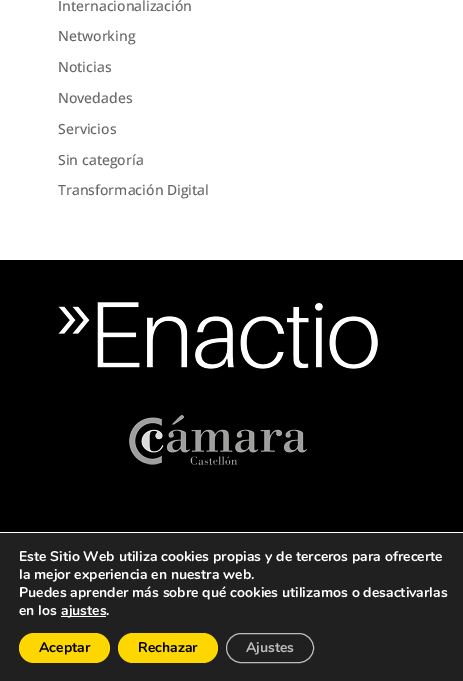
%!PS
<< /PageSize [463 681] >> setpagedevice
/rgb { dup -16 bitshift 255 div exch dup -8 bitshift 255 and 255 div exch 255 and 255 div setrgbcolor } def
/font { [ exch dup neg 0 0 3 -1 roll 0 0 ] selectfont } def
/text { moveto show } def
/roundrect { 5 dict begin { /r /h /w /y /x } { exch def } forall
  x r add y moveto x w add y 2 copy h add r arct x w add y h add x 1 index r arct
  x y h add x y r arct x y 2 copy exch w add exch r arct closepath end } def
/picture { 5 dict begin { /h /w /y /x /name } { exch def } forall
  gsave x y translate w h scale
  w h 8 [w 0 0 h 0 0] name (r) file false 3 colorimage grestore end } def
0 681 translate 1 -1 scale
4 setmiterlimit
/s1 { /OpenSans-Medium 14 font 16#666666 rgb } def
/s2 { /Nunito-Bold 14 font 16#FFFFFF rgb } def
/s3 { /Nunito-Bold 14 font 16#000000 rgb } def
/s4 { /Nunito-Bold 14 font 16#BCBCBC rgb } def
16#FFFFFF rgb
0 0 463 681 rectfill
s1
(Internacionalización) 58 11 text
(Networking) 58 41 text
(Noticias) 58 72 text
(Novedades) 58 103 text
(Servicios) 58 134 text
(Sin categoría) 58 165 text
(Transformación Digital) 58 195 text
16#000000 rgb
0 260 463 272 rectfill
(pic1.raw) 58 302 320 163 picture
16#202020 rgb
0 533 463 148 rectfill
s2
(Este Sitio Web utiliza cookies propias y de terceros para ofrecerte) 19 561 text
(la mejor experiencia en nuestra web.) 19 579 text
(Puedes aprender más sobre qué cookies utilizamos o desactivarlas) 19 597 text
(en los) 19 615 text
61 616 45 1 rectfill
(ajustes.) 61 615 text
16#FFD700 rgb
19 633 91 30 15 roundrect fill
s3
(Aceptar) 39 652 text
16#FFD700 rgb
118 633 100 30 15 roundrect fill
s3
(Rechazar) 138 652 text
16#BCBCBC rgb
226.5 633.5 87 29 14.5 roundrect stroke
(Ajustes) 246 652 text
showpage
